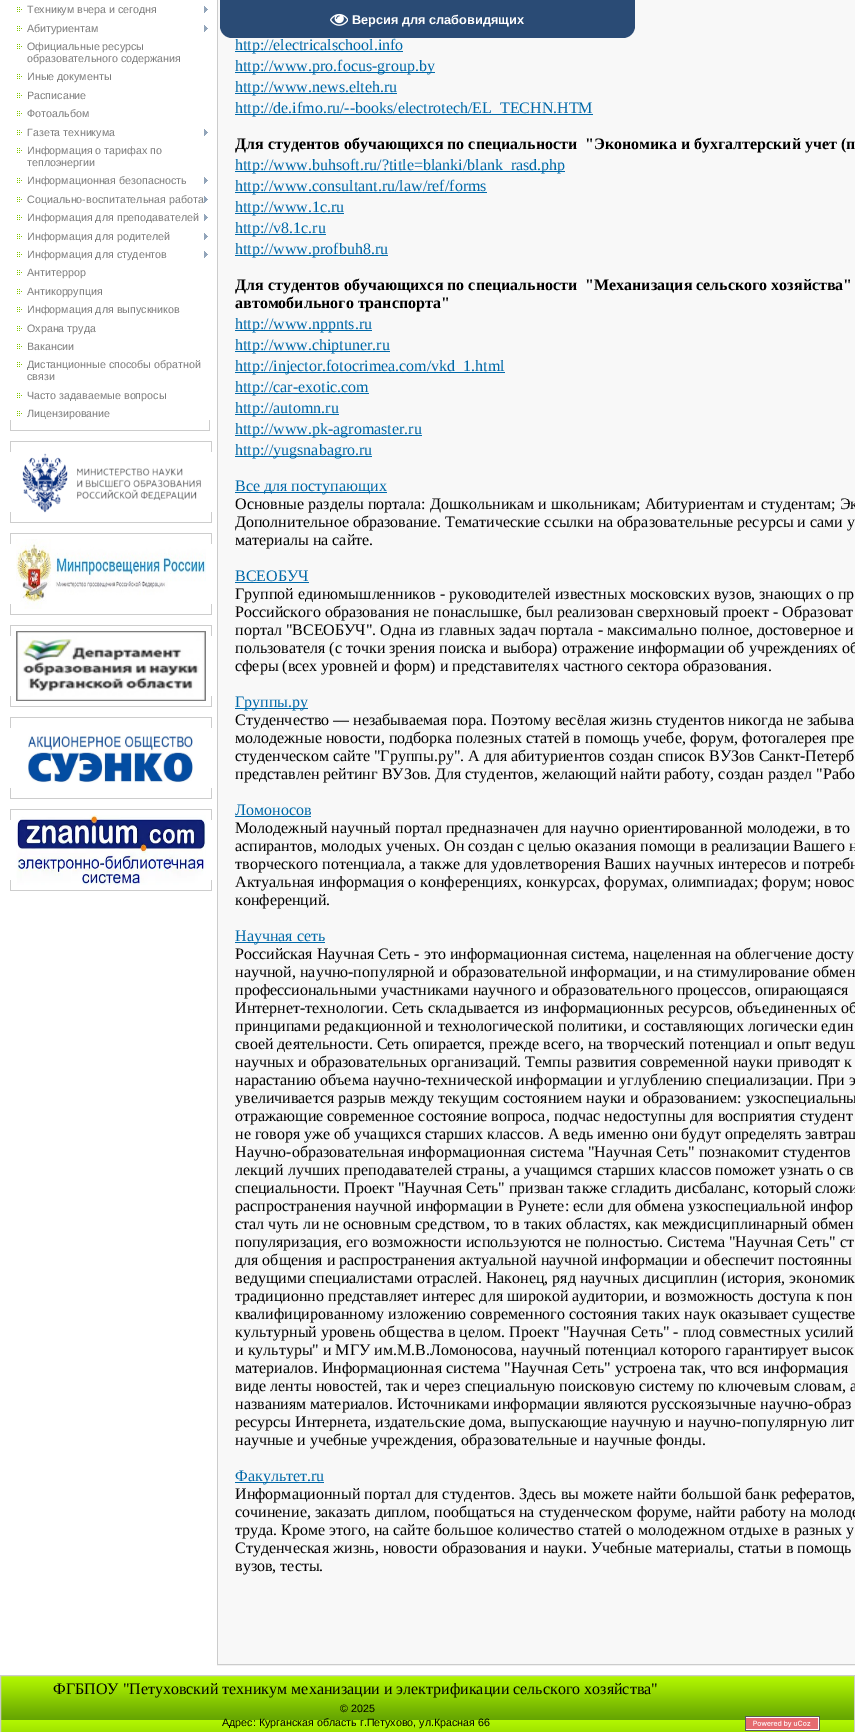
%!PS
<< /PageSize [855 1732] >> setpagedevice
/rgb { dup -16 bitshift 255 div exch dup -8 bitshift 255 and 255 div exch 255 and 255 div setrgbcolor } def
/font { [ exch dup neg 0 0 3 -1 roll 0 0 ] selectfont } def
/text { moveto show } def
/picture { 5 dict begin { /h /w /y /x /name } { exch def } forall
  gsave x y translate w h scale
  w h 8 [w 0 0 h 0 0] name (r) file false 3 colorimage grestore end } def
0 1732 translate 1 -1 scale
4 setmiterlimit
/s1 { /LiberationSans-Regular 10.7 font 16#7D7D7D rgb } def
/s2 { /LiberationSerif-Regular 16 font 16#0069A9 rgb } def
/s3 { /LiberationSerif-Bold 16 font 16#000000 rgb } def
/s4 { /LiberationSerif-Regular 16 font 16#000000 rgb } def
/s5 { /LiberationSans-Bold 12.75 font 16#FFFFFF rgb } def
/s6 { /LiberationSans-Regular 10.7 font 16#000000 rgb } def
16#FFFFFF rgb
0 0 855 1732 rectfill
16#CDCDCD rgb
11 430 198 1 rectfill
(pic1.raw) 17 7 5 5 picture
s1
(Техникум вчера и сегодня) 27 13 text
(pic2.raw) 204 6 4 7 picture
(pic1.raw) 17 26 5 5 picture
(Абитуриентам) 27 32 text
(pic2.raw) 204 25 4 7 picture
(pic1.raw) 17 44 5 5 picture
(Официальные ресурсы) 27 50 text
(образовательного содержания) 27 62 text
(pic1.raw) 17 74 5 5 picture
(Иные документы) 27 80 text
(pic1.raw) 17 93 5 5 picture
(Расписание) 27 99 text
(pic1.raw) 17 111 5 5 picture
(Фотоальбом) 27 117 text
(pic1.raw) 17 130 5 5 picture
(Газета техникума) 27 136 text
(pic2.raw) 204 129 4 7 picture
(pic1.raw) 17 148 5 5 picture
(Информация о тарифах по) 27 154 text
(теплоэнергии) 27 166 text
(pic1.raw) 17 178 5 5 picture
(Информационная безопасность) 27 184 text
(pic2.raw) 204 177 4 7 picture
(pic1.raw) 17 197 5 5 picture
(Социально-воспитательная работа) 27 203 text
(pic2.raw) 204 196 4 7 picture
(pic1.raw) 17 215 5 5 picture
(Информация для преподавателей) 27 221 text
(pic2.raw) 204 214 4 7 picture
(pic1.raw) 17 234 5 5 picture
(Информация для родителей) 27 240 text
(pic2.raw) 204 233 4 7 picture
(pic1.raw) 17 252 5 5 picture
(Информация для студентов) 27 258 text
(pic2.raw) 204 251 4 7 picture
(pic1.raw) 17 270 5 5 picture
(Антитеррор) 27 276 text
(pic1.raw) 17 289 5 5 picture
(Антикоррупция) 27 295 text
(pic1.raw) 17 307 5 5 picture
(Информация для выпускников) 27 313 text
(pic1.raw) 17 326 5 5 picture
(Охрана труда) 27 332 text
(pic1.raw) 17 344 5 5 picture
(Вакансии) 27 350 text
(pic1.raw) 17 362 5 5 picture
(Дистанционные способы обратной) 27 368 text
(связи) 27 380 text
(pic1.raw) 17 393 5 5 picture
(Часто задаваемые вопросы) 27 399 text
(pic1.raw) 17 411 5 5 picture
(Лицензирование) 27 417 text
16#CDCDCD rgb
10 420 1 11 rectfill
209 420 1 11 rectfill
10 512 1 11 rectfill
10 441 1 11 rectfill
11 441 200 1 rectfill
11 522 200 1 rectfill
(pic3.raw) 22 453 179 60 picture
211 512 1 11 rectfill
211 441 1 11 rectfill
10 604 1 11 rectfill
10 533 1 11 rectfill
11 533 200 1 rectfill
11 614 200 1 rectfill
(pic4.raw) 16 539 190 70 picture
211 604 1 11 rectfill
211 533 1 11 rectfill
10 696 1 11 rectfill
10 625 1 11 rectfill
11 625 200 1 rectfill
11 706 200 1 rectfill
(pic5.raw) 16 631 190 70 picture
211 696 1 11 rectfill
211 625 1 11 rectfill
10 788 1 11 rectfill
10 717 1 11 rectfill
11 717 200 1 rectfill
11 798 200 1 rectfill
(pic6.raw) 28 736 165 47 picture
211 788 1 11 rectfill
211 717 1 11 rectfill
10 880 1 11 rectfill
10 809 1 11 rectfill
11 809 200 1 rectfill
11 890 200 1 rectfill
(pic7.raw) 16 815 190 70 picture
211 880 1 11 rectfill
211 809 1 11 rectfill
16#CCCCCC rgb
217.5 -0.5 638 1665 rectstroke
16#F8F8F8 rgb
218 0 637 1664 rectfill
16#0069A9 rgb
235 51 168 1 rectfill
s2
(http://electricalschool.info) 235 50 text
235 72 200 1 rectfill
(http://www.pro.focus-group.by) 235 71 text
235 93 162 1 rectfill
(http://www.news.elteh.ru) 235 92 text
235 114 358 1 rectfill
(http://de.ifmo.ru/--books/electrotech/EL_TECHN.HTM) 235 113 text
s3
(Для студентов обучающихся по специальности  "Экономика и бухгалтерский учет \(п) 235 149 text
16#0069A9 rgb
235 171 330 1 rectfill
s2
(http://www.buhsoft.ru/?title=blanki/blank_rasd.php) 235 170 text
235 192 252 1 rectfill
(http://www.consultant.ru/law/ref/forms) 235 191 text
235 213 109 1 rectfill
(http://www.1c.ru) 235 212 text
235 234 91 1 rectfill
(http://v8.1c.ru) 235 233 text
235 255 153 1 rectfill
(http://www.profbuh8.ru) 235 254 text
s3
(Для студентов обучающихся по специальности  "Механизация сельского хозяйства") 235 290 text
(автомобильного транспорта") 235 308 text
16#0069A9 rgb
235 330 137 1 rectfill
s2
(http://www.nppnts.ru) 235 329 text
235 351 155 1 rectfill
(http://www.chiptuner.ru) 235 350 text
235 372 270 1 rectfill
(http://injector.fotocrimea.com/vkd_1.html) 235 371 text
235 393 134 1 rectfill
(http://car-exotic.com) 235 392 text
235 414 104 1 rectfill
(http://automn.ru) 235 413 text
235 435 187 1 rectfill
(http://www.pk-agromaster.ru) 235 434 text
235 456 137 1 rectfill
(http://yugsnabagro.ru) 235 455 text
235 492 152 1 rectfill
(Все для поступающих) 235 491 text
s4
(Основные разделы портала: Дошкольникам и школьникам; Абитуриентам и студентам; Эк) 235 509 text
(Дополнительное образование. Тематические ссылки на образовательные ресурсы и сами у) 235 527 text
(материалы на сайте.) 235 545 text
s2
(ВСЕОБУЧ) 235 581 text
235 582 74 1 rectfill
s4
(Группой единомышленников - руководителей известных московских вузов, знающих о пр) 235 599 text
(Российского образования не понаслышке, был реализован сверхновый проект - Образоват) 235 617 text
(портал "ВСЕОБУЧ". Одна из главных задач портала - максимально полное, достоверное и) 235 635 text
(пользователя \(с точки зрения поиска и выбора\) отражение информации об учреждениях об) 235 653 text
(сферы \(всех уровней и форм\) и представителях частного сектора образования.) 235 671 text
16#0069A9 rgb
235 708 73 1 rectfill
(Группы.ру) 235 707 text
s4
(Студенчество — незабываемая пора. Поэтому весёлая жизнь студентов никогда не забыва) 235 725 text
(молодежные новости, подборка полезных статей в помощь учебе, форум, фотогалерея пре) 235 743 text
(студенческом сайте "Группы.ру". А для абитуриентов создан список ВУЗов Санкт-Петерб) 235 761 text
(представлен рейтинг ВУЗов. Для студентов, желающий найти работу, создан раздел "Рабо) 235 779 text
s2
(Ломоносов) 235 815 text
235 816 76 1 rectfill
s4
(Молодежный научный портал предназначен для научно ориентированной молодежи, в то) 235 833 text
(аспирантов, молодых ученых. Он создан с целью оказания помощи в реализации Вашего н) 235 851 text
(творческого потенциала, а также для удовлетворения Ваших научных интересов и потребн) 235 869 text
(Актуальная информация о конференциях, конкурсах, форумах, олимпиадах; форум; новос) 235 887 text
(конференций.) 235 905 text
16#0069A9 rgb
235 942 90 1 rectfill
(Научная сеть) 235 941 text
s4
(Российская Научная Сеть - это информационная система, нацеленная на облегчение досту) 235 959 text
(научной, научно-популярной и образовательной информации, и на стимулирование обмен) 235 977 text
(профессиональными участниками научного и образовательного процессов, опирающаяся) 235 995 text
(Интернет-технологии. Сеть складывается из информационных ресурсов, объединенных об) 235 1013 text
(принципами редакционной и технологической политики, и составляющих логически един) 235 1031 text
(своей деятельности. Сеть опирается, прежде всего, на творческий потенциал и опыт ведущ) 235 1049 text
(научных и образовательных организаций. Темпы развития современной науки приводят к) 235 1067 text
(нарастанию объема научно-технической информации и углублению специализации. При э) 235 1085 text
(увеличивается разрыв между текущим состоянием науки и образованием: узкоспециальны) 235 1103 text
(отражающие современное состояние вопроса, подчас недоступны для восприятия студент) 235 1121 text
(не говоря уже об учащихся старших классов. А ведь именно они будут определять завтраш) 235 1139 text
(Научно-образовательная информационная система "Научная Сеть" познакомит студентов) 235 1157 text
(лекций лучших преподавателей страны, а учащимся старших классов поможет узнать о св) 235 1175 text
(специальности. Проект "Научная Сеть" призван также сгладить дисбаланс, который сложи) 235 1193 text
(распространения научной информации в Рунете: если для обмена узкоспециальной инфор) 235 1211 text
(стал чуть ли не основным средством, то в таких областях, как междисциплинарный обмен) 235 1229 text
(популяризация, его возможности используются не полностью. Система "Научная Сеть" ст) 235 1247 text
(для общения и распространения актуальной научной информации и обеспечит постоянны) 235 1265 text
(ведущими специалистами отраслей. Наконец, ряд научных дисциплин \(история, экономик) 235 1283 text
(традиционно представляет интерес для широкой аудитории, и возможность доступа к пон) 235 1301 text
(квалифицированному изложению современного состояния таких наук оказывает существе) 235 1319 text
(культурный уровень общества в целом. Проект "Научная Сеть" - плод совместных усилий) 235 1337 text
(и культуры" и МГУ им.М.В.Ломоносова, научный потенциал которого гарантирует высок) 235 1355 text
(материалов. Информационная система "Научная Сеть" устроена так, что вся информация) 235 1373 text
(виде ленты новостей, так и через специальную поисковую систему по ключевым словам, а) 235 1391 text
(названиям материалов. Источниками информации являются русскоязычные научно-образ) 235 1409 text
(ресурсы Интернета, издательские дома, выпускающие научную и научно-популярную лит) 235 1427 text
(научные и учебные учреждения, образовательные и научные фонды.) 235 1445 text
16#0069A9 rgb
235 1482 89 1 rectfill
(Факультет.ru) 235 1481 text
s4
(Информационный портал для студентов. Здесь вы можете найти большой банк рефератов,) 235 1499 text
(сочинение, заказать диплом, пообщаться на студенческом форуме, найти работу на молоде) 235 1517 text
(труда. Кроме этого, на сайте большое количество статей о молодежном отдыхе в разных у) 235 1535 text
(Студенческая жизнь, новости образования и науки. Учебные материалы, статьи в помощь) 235 1553 text
(вузов, тесты.) 235 1571 text
16#2A4B75 rgb
220 0 moveto 635 0 lineto 635 26 lineto 635 32.5 629.5 38 623 38 curveto 232 38 lineto 225.5 38 220 32.5 220 26 curveto closepath fill
(pic8.raw) 330 13 18 13 picture
s5
(Версия для слабовидящих) 352 24 text
(pic9.raw) 1 1676 853 56 picture
16#CCCCCC rgb
0.5 1675.5 854 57 rectstroke
s4
(ФГБПОУ "Петуховский техникум механизации и электрификации сельского хозяйства") 53 1694 text
s6
(© 2025) 340 1712 text
(Адрес: Курганская область г.Петухово, ул.Красная 66) 222 1726 text
(pic10.raw) 745 1716 75 15 picture
showpage
